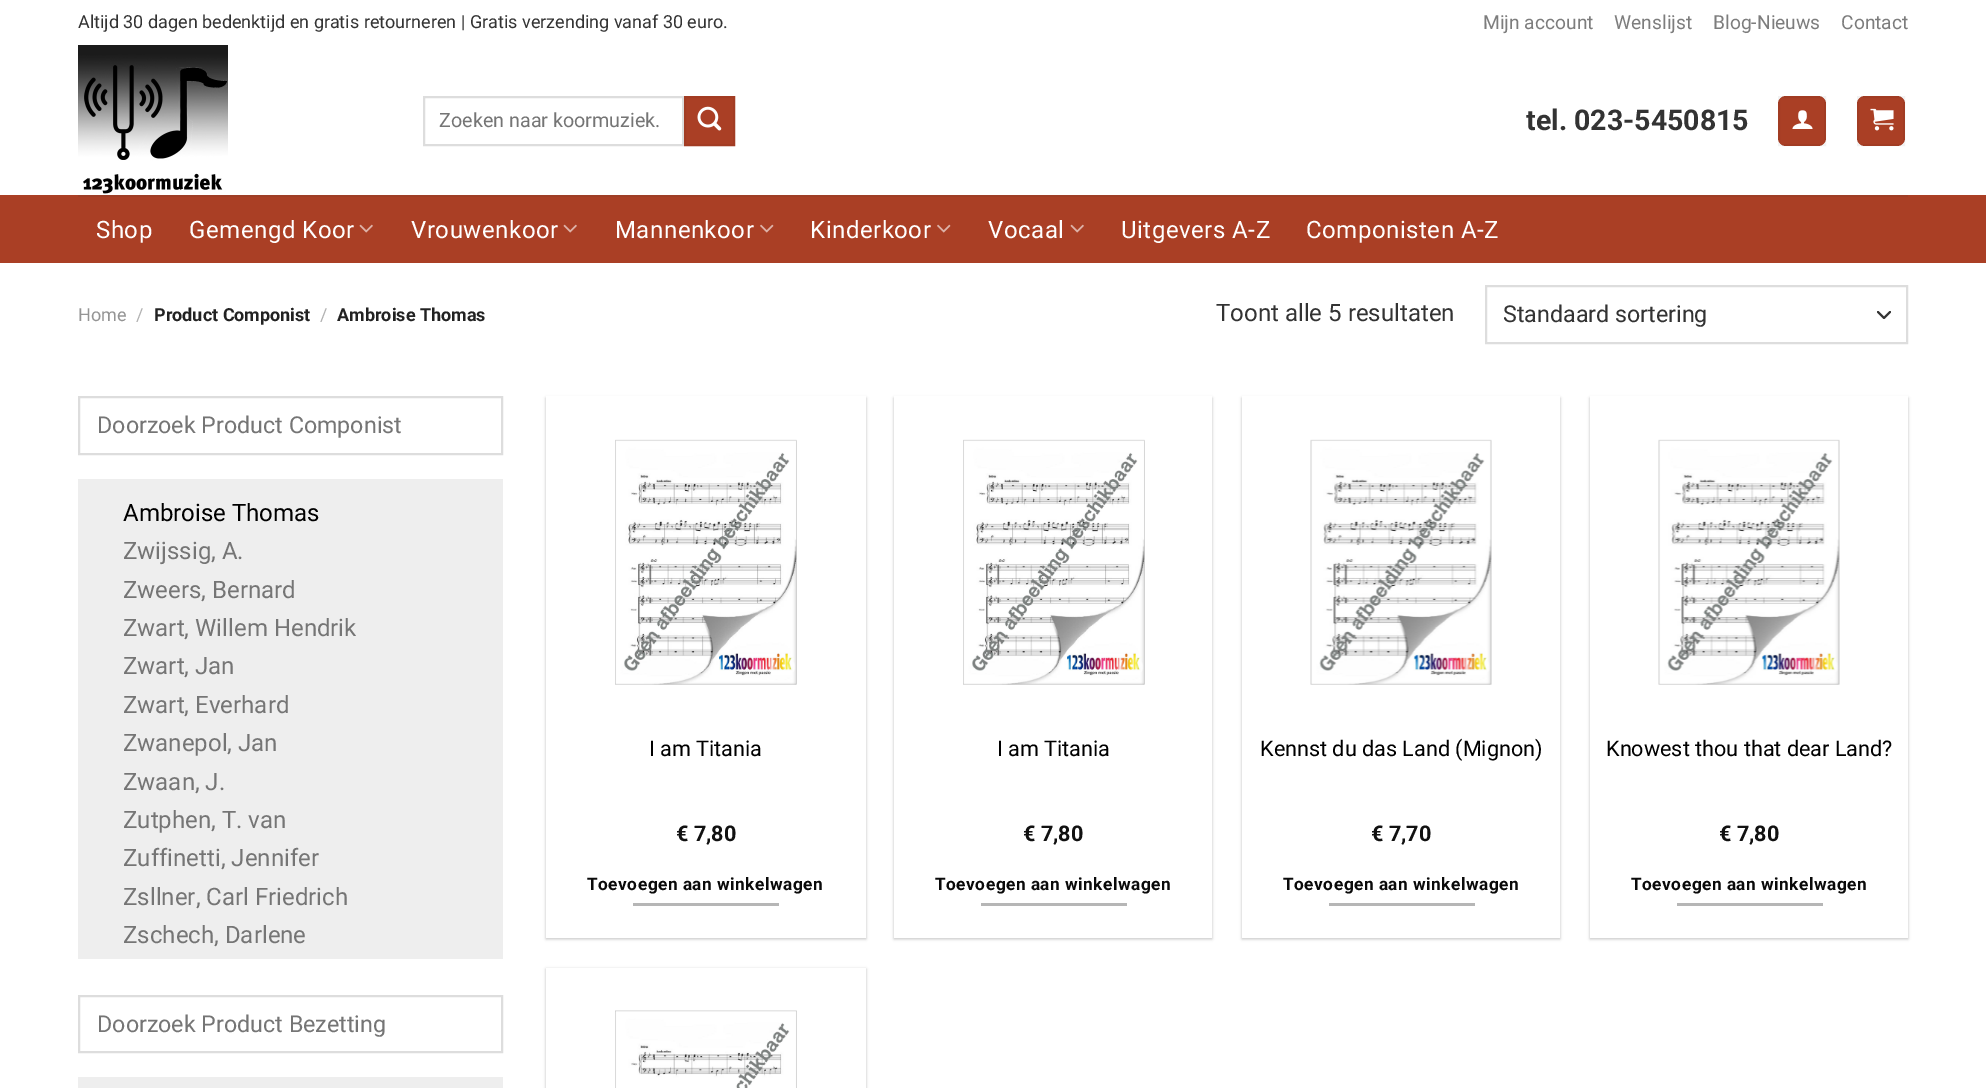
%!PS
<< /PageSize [1986 1088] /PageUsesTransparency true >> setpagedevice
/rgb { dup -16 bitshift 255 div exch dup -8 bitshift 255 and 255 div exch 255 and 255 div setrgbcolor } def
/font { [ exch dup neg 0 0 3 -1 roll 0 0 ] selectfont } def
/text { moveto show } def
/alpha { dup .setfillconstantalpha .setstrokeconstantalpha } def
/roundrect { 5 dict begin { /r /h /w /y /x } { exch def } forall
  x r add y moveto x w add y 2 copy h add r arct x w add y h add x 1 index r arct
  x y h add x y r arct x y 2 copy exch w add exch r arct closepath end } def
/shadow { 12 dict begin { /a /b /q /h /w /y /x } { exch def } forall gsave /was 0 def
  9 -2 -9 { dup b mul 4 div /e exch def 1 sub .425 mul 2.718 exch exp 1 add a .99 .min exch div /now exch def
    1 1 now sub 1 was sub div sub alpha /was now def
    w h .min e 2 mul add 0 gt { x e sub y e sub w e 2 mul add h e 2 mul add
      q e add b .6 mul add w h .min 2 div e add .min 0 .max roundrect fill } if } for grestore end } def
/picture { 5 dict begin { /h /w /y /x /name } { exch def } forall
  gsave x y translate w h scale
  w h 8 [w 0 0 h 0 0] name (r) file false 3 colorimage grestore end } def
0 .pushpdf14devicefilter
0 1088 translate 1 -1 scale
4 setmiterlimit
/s1 { /Roboto-Regular 18 font 16#333333 rgb } def
/s2 { /Roboto-Regular 19.25 font 16#7D7D7D rgb } def
/s3 { /Roboto-Regular 19.75 font 16#757575 rgb } def
/s4 { /Roboto-Bold 28.5 font 16#333333 rgb } def
/s5 { /Roboto-Regular 18 font 16#949494 rgb } def
/s6 { /Roboto-Regular 18 font 16#B2B2B2 rgb } def
/s7 { /Roboto-Bold 18 font 16#222222 rgb } def
/s8 { /Roboto-Regular 24 font 16#333333 rgb } def
/s9 { /Roboto-Regular 23.25 font 16#333333 rgb } def
/s10 { /Roboto-Regular 23.25 font 16#757575 rgb } def
/s11 { /Roboto-Regular 24 font 16#000000 rgb } def
/s12 { /Roboto-Regular 24 font 16#757575 rgb } def
/s13 { /Roboto-Regular 21.6 font 16#000000 rgb } def
/s14 { /Roboto-Bold 21.6 font 16#111111 rgb } def
16#FFFFFF rgb
0 0 1986 1088 rectfill
s1
(Altijd 30 dagen bedenktijd en gratis retourneren | Gratis verzending vanaf 30 euro.) 78 28 text
s2
(Mijn account) 1483 29 text
(Wenslijst) 1614 29 text
(Blog-Nieuws) 1713 29 text
(Contact) 1841 29 text
(pic1.raw) 78 45 150 149 picture
16#DDDDDD rgb
2 setlinewidth
424 97 259 48 rectstroke
s3
(Zoeken naar koormuziek.) 439 127 text
16#AA3F25 rgb
685 97 moveto 734 97 lineto 734 145 lineto 685 145 lineto closepath gsave fill grestore
16#A23C23 rgb
stroke
(pic2.raw) 697 106 25 25 picture
s4
(tel. 023-5450815) 1526 130 text
16#AA3F25 rgb
1778 96 48 50 8 roundrect fill
0.05 alpha
16#000000 rgb
1779 97 46 48 rectstroke
1 alpha
(pic3.raw) 1792 110 21 19 picture
16#AA3F25 rgb
1857 96 48 50 8 roundrect fill
0.05 alpha
16#000000 rgb
1858 97 46 48 rectstroke
1 alpha
(pic4.raw) 1870 108 24 23 picture
16#AA3F25 rgb
0 195 1986 68 rectfill
16#9E3E26 rgb
78 195 1830 2 rectfill
/Roboto-Regular 24 font
16#FFFFFF rgb
96 238 moveto 0.5 0 (Shop) ashow
189 238 moveto 0.5 0 (Gemengd Koor) ashow
(pic5.raw) 359 224 14 9 picture
411 238 moveto 0.5 0 (Vrouwenkoor) ashow
(pic5.raw) 563 224 14 9 picture
615 238 moveto 0.5 0 (Mannenkoor) ashow
(pic6.raw) 760 224 14 9 picture
810 238 moveto 0.5 0 (Kinderkoor) ashow
(pic6.raw) 937 224 14 9 picture
988 238 moveto 0.5 0 (Vocaal) ashow
(pic5.raw) 1070 224 14 9 picture
1121 238 moveto 0.5 0 (Uitgevers A-Z) ashow
1306 238 moveto 0.5 0 (Componisten A-Z) ashow
s5
(Home) 78 321 text
s6
(/) 136 321 text
s7
(Product Componist) 154 321 text
s6
(/) 320 321 text
s7
(Ambroise Thomas) 337 321 text
s8
(Toont alle 5 resultaten) 1216 321 text
1 setlinecap
1 setlinejoin
1878 312 moveto 1884 318 lineto 1890 312 lineto stroke
16#DDDDDD rgb
0 setlinecap
0 setlinejoin
1486 286 421 57 rectstroke
s9
(Standaard sortering) 1503 322 text
16#DDDDDD rgb
79 397 423 57 rectstroke
s10
(Doorzoek Product Componist) 97 433 text
16#EEEEEE rgb
78 479 425 480 rectfill
s11
(Ambroise Thomas) 123 521 text
s12
(Zwijssig, A.) 123 559 text
(Zweers, Bernard) 123 598 text
(Zwart, Willem Hendrik) 123 636 text
(Zwart, Jan) 123 674 text
(Zwart, Everhard) 123 713 text
(Zwanepol, Jan) 123 751 text
(Zwaan, J.) 123 790 text
(Zutphen, T. van) 123 828 text
(Zuffinetti, Jennifer) 123 866 text
(Zsllner, Carl Friedrich) 123 905 text
(Zschech, Darlene) 123 943 text
16#DDDDDD rgb
79 996 423 56 rectstroke
s10
(Doorzoek Product Bezetting) 97 1032 text
16#EEEEEE rgb
78 1077 425 11 rectfill
16#000000 rgb
546 398 320 541 0 1.5 0.24 shadow
16#FFFFFF rgb
546 396 320 542 rectfill
(pic7.raw) 615 439 182 246 picture
s13
(I am Titania) 649 756 text
s14
(€ 7,80) 676 841 text
/Roboto-Bold 17.25 font
16#0A0A0A rgb
587 890 moveto 0.5 0 (Toevoegen aan winkelwagen) ashow
16#B6B6B6 rgb
633 903 146 3 rectfill
16#000000 rgb
894 398 318 541 0 1.5 0.24 shadow
16#FFFFFF rgb
894 396 318 542 rectfill
(pic7.raw) 963 439 182 246 picture
s13
(I am Titania) 997 756 text
s14
(€ 7,80) 1023 841 text
/Roboto-Bold 17.25 font
16#0A0A0A rgb
935 890 moveto 0.5 0 (Toevoegen aan winkelwagen) ashow
16#B6B6B6 rgb
981 903 146 3 rectfill
16#000000 rgb
1242 398 318 541 0 1.5 0.24 shadow
16#FFFFFF rgb
1242 396 318 542 rectfill
(pic8.raw) 1310 439 182 246 picture
s13
(Kennst du das Land \(Mignon\)) 1260 756 text
s14
(€ 7,70) 1371 841 text
/Roboto-Bold 17.25 font
16#0A0A0A rgb
1283 890 moveto 0.5 0 (Toevoegen aan winkelwagen) ashow
16#B6B6B6 rgb
1329 903 146 3 rectfill
16#000000 rgb
1590 398 318 541 0 1.5 0.24 shadow
16#FFFFFF rgb
1590 396 318 542 rectfill
(pic8.raw) 1658 439 182 246 picture
s13
(Knowest thou that dear Land?) 1606 756 text
s14
(€ 7,80) 1719 841 text
/Roboto-Bold 17.25 font
16#0A0A0A rgb
1631 890 moveto 0.5 0 (Toevoegen aan winkelwagen) ashow
16#B6B6B6 rgb
1677 903 146 3 rectfill
16#000000 rgb
546 969 320 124 0 1.5 0.24 shadow
16#FFFFFF rgb
546 968 320 120 rectfill
(pic9.raw) 615 1010 182 78 picture
.poppdf14devicefilter showpage
